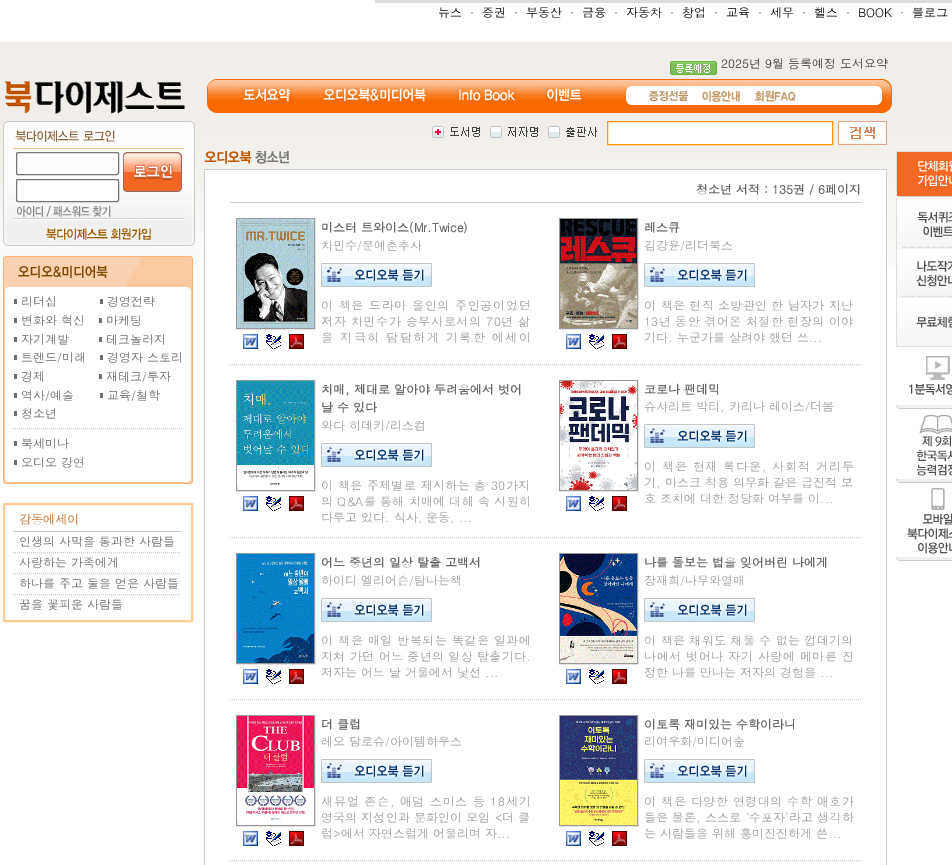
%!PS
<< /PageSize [952 865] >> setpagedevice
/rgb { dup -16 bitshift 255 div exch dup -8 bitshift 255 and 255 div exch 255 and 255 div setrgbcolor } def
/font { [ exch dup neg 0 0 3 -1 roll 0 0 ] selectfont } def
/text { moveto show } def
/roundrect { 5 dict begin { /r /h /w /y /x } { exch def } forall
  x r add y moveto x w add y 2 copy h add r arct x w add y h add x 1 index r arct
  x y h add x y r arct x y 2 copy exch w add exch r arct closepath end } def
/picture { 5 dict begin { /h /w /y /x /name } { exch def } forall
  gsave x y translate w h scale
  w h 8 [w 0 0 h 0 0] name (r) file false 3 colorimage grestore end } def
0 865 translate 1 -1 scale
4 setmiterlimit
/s1 { /Dotum-Regular 12 font 16#000000 rgb } def
/s2 { /Dotum-Regular 12 font 16#333333 rgb } def
/s3 { /Dotum-Regular 12 font 16#666666 rgb } def
/s4 { /Dotum-Bold 12 font 16#D09162 rgb } def
/s5 { /Dotum-Bold 12 font 16#666666 rgb } def
/s6 { /Dotum-Regular 12 font 16#999999 rgb } def
16#FFFFFF rgb
0 0 952 865 rectfill
(pic1.raw) 0 42 952 226 picture
16#DDDDDD rgb
375 0 577 3 rectfill
s1
(뉴스) 438 17 text
s2
(·) 470 17 text
s1
(증권) 482 17 text
s2
(·) 514 17 text
s1
(부동산) 526 17 text
s2
(·) 570 17 text
s1
(금융) 582 17 text
s2
(·) 614 17 text
s1
(자동차) 626 17 text
s2
(·) 670 17 text
s1
(창업) 682 17 text
s2
(·) 714 17 text
s1
(교육) 726 17 text
s2
(·) 758 17 text
s1
(세무) 770 17 text
s2
(·) 802 17 text
s1
(헬스) 814 17 text
s2
(·) 846 17 text
s1
(BOOK) 858 17 text
s2
(·) 900 17 text
s1
(블로그) 912 17 text
(pic2.raw) 670 61 47 14 picture
s2
(2025년 9월 등록예정 도서요약) 721 68 text
(pic3.raw) 5 81 180 33 picture
(pic4.raw) 207 79 685 34 picture
(pic5.raw) 242 87 50 15 picture
(pic6.raw) 322 87 105 15 picture
(pic7.raw) 457 87 59 14 picture
(pic8.raw) 546 87 37 15 picture
(pic9.raw) 649 91 39 11 picture
(pic10.raw) 702 91 38 11 picture
(pic11.raw) 755 90 41 12 picture
(pic12.raw) 3 121 192 125 picture
16#767676 rgb
16.5 152.5 102 22 1.5 roundrect stroke
(pic13.raw) 123 152 59 40 picture
16#FFFFFF rgb
16.5 179.5 102 22 1.5 roundrect gsave fill grestore
16#767676 rgb
stroke
(pic14.raw) 17 206 94 11 picture
(pic15.raw) 46 227 105 14 picture
(pic16.raw) 3 256 190 36 picture
(pic17.raw) 3 292 190 179 picture
16#707070 rgb
14 299 3 5 rectfill
s3
(리더십) 21 306 text
(경영전략) 107 306 text
16#707070 rgb
100 299 3 5 rectfill
14 318 3 5 rectfill
s3
(변화와 혁신) 21 325 text
(마케팅) 106 325 text
16#707070 rgb
99 318 3 5 rectfill
14 337 3 5 rectfill
s3
(자기계발) 21 344 text
(테크놀러지) 106 344 text
16#707070 rgb
99 337 3 5 rectfill
100 355 3 5 rectfill
s3
(경영자 스토리) 107 362 text
16#707070 rgb
14 374 3 5 rectfill
s3
(경제) 21 381 text
(재테크/투자) 106 381 text
16#707070 rgb
99 374 3 5 rectfill
s3
(역사/예술) 21 400 text
16#707070 rgb
14 393 3 5 rectfill
s3
(교육/철학) 107 400 text
16#707070 rgb
100 393 3 5 rectfill
s3
(청소년) 21 418 text
16#707070 rgb
14 411 3 5 rectfill
16#CCCCCC rgb
[1 1] 0 setdash
13 428.5 moveto 183 428.5 lineto stroke
16#707070 rgb
14 441 3 5 rectfill
s3
(북세미나) 21 448 text
16#707070 rgb
14 460 3 5 rectfill
s3
(오디오 강연) 21 467 text
16#707070 rgb
14 355 3 5 rectfill
s3
(트렌드/미래) 21 362 text
(pic18.raw) 3 471 190 13 picture
16#FFCC99 rgb
2 setlinewidth
[] 0 setdash
4 504 188 117 rectstroke
16#CCCCCC rgb
13 531 168 1 rectfill
s4
(감동에세이) 19 524 text
16#CCCCCC rgb
1 setlinewidth
[1 1] 0 setdash
13 552.5 moveto 181 552.5 lineto stroke
s3
(인생의 사막을 통과한 사람들) 19 546 text
16#CCCCCC rgb
13 573.5 moveto 181 573.5 lineto stroke
s3
(사랑하는 가족에게) 19 567 text
16#CCCCCC rgb
13 594.5 moveto 181 594.5 lineto stroke
s3
(하나를 주고 둘을 얻은 사람들) 19 588 text
(꿈을 꽃피운 사람들) 19 609 text
(pic19.raw) 432 126 48 12 picture
(pic20.raw) 490 126 48 12 picture
(pic21.raw) 548 126 49 12 picture
16#FFFFFF rgb
607.5 121.5 moveto 832.5 121.5 lineto 832.5 144.5 lineto 607.5 144.5 lineto closepath gsave fill grestore
16#FF9900 rgb
[] 0 setdash
stroke
(pic22.raw) 838 121 49 24 picture
16#CCCCCC rgb
204 169 683 1 rectfill
(pic23.raw) 204 151 85 13 picture
16#FFFFFF rgb
205 170 681 98 rectfill
16#CCCCCC rgb
886 170 1 695 rectfill
204 170 1 695 rectfill
230 202 631 1 rectfill
s5
(청소년 서적 : 135권 / 6페이지) 696 194 text
16#CCCCCC rgb
[1 1] 0 setdash
230 364.5 moveto 538 364.5 lineto stroke
16#999999 rgb
[] 0 setdash
236.5 218.5 78 110 rectstroke
(pic24.raw) 237 219 77 109 picture
(pic25.raw) 243 334 15 15 picture
(pic26.raw) 266 334 15 15 picture
(pic27.raw) 289 334 15 15 picture
s5
(미스터 트와이스\(Mr.Twice\)) 321 232 text
s6
(차민수/문예춘추사) 321 250 text
(pic28.raw) 321 263 111 24 picture
321 310 moveto 0.75 0 (이 책은 드라마 올인의 주인공이었던) ashow
321 326 moveto 0.6 0 (저자 차민수가 승부사로서의 70년 삶) ashow
321 342 moveto 1.5 0 (을 지극히 담담하게 기록한 에세이) ashow
16#CCCCCC rgb
[1 1] 0 setdash
538 364.5 moveto 861 364.5 lineto stroke
16#999999 rgb
[] 0 setdash
559.5 218.5 78 110 rectstroke
(pic29.raw) 560 219 77 109 picture
(pic25.raw) 566 334 15 15 picture
(pic26.raw) 589 334 15 15 picture
(pic27.raw) 612 334 15 15 picture
s5
(레스큐) 644 232 text
s6
(김강윤/리더북스) 644 250 text
(pic28.raw) 644 263 111 24 picture
644 310 moveto 0.25 0 (이 책은 현직 소방관인 한 남자가 지난) ashow
644 326 moveto 0.35 0 (13년 동안 겪어온 처절한 현장의 이야) ashow
(기다. 누군가를 살려야 했던 쓰...) 644 342 text
16#CCCCCC rgb
[1 1] 0 setdash
230 537.5 moveto 538 537.5 lineto stroke
16#999999 rgb
[] 0 setdash
236.5 380.5 78 110 rectstroke
(pic30.raw) 237 381 77 105 picture
(pic25.raw) 243 496 15 15 picture
(pic26.raw) 266 496 15 15 picture
(pic27.raw) 289 496 15 15 picture
s5
(치매, 제대로 알아야 두려움에서 벗어) 321 394 text
(날 수 있다) 321 412 text
s6
(와다 히데키/리스컴) 321 430 text
(pic28.raw) 321 443 111 24 picture
321 490 moveto 0.35 0 (이 책은 주제별로 제시하는 총 30가지) ashow
321 506 moveto 0.2 0 (의 Q&A를 통해 치매에 대해 속 시원히) ashow
(다루고 있다. 식사, 운동, ...) 321 522 text
16#CCCCCC rgb
[1 1] 0 setdash
538 537.5 moveto 861 537.5 lineto stroke
16#999999 rgb
[] 0 setdash
559.5 380.5 78 110 rectstroke
(pic31.raw) 560 381 77 109 picture
(pic25.raw) 566 496 15 15 picture
(pic26.raw) 589 496 15 15 picture
(pic27.raw) 612 496 15 15 picture
s5
(코로나 팬데믹) 644 394 text
s6
(슈샤리트 박티, 카리나 레이스/더봄) 644 411 text
(pic28.raw) 644 424 111 24 picture
644 471 moveto 0.9 0 (이 책은 현재 록다운, 사회적 거리두) ashow
(기, 마스크 착용 의무화 같은 급진적 보) 644 487 text
(호 조치에 대한 정당화 여부를 이...) 644 503 text
16#CCCCCC rgb
[1 1] 0 setdash
230 699.5 moveto 538 699.5 lineto stroke
16#999999 rgb
[] 0 setdash
236.5 553.5 78 110 rectstroke
(pic32.raw) 237 554 77 109 picture
(pic25.raw) 243 669 15 15 picture
(pic26.raw) 266 669 15 15 picture
(pic27.raw) 289 669 15 15 picture
s5
(어느 중년의 일상 탈출 고백서) 321 567 text
s6
(하이디 엘리어슨/탐나는책) 321 585 text
(pic28.raw) 321 598 111 24 picture
321 645 moveto 0.5 0 (이 책은 매일 반복되는 똑같은 일과에) ashow
321 661 moveto 0.25 0 (지쳐 가던 어느 중년의 일상 탈출기다.) ashow
(저자는 어느 날 거울에서 낯선 ...) 321 677 text
16#CCCCCC rgb
[1 1] 0 setdash
538 699.5 moveto 861 699.5 lineto stroke
16#999999 rgb
[] 0 setdash
559.5 553.5 78 110 rectstroke
(pic33.raw) 560 554 77 109 picture
(pic25.raw) 566 669 15 15 picture
(pic26.raw) 589 669 15 15 picture
(pic27.raw) 612 669 15 15 picture
s5
(나를 돌보는 법을 잊어버린 나에게) 644 567 text
s6
(장재희/나무와열매) 644 585 text
(pic28.raw) 644 598 111 24 picture
644 645 moveto 0.25 0 (이 책은 채워도 채울 수 없는 껍데기의) ashow
644 661 moveto 0.5 0 (나에서 벗어나 자기 사랑에 메마른 진) ashow
(정한 나를 만나는 저자의 경험을 ...) 644 677 text
16#CCCCCC rgb
[1 1] 0 setdash
230 860.5 moveto 538 860.5 lineto stroke
16#999999 rgb
[] 0 setdash
236.5 715.5 78 110 rectstroke
(pic34.raw) 237 716 77 104 picture
(pic25.raw) 243 831 15 15 picture
(pic26.raw) 266 831 15 15 picture
(pic27.raw) 289 831 15 15 picture
s5
(더 클럽) 321 729 text
s6
(레오 담로슈/아이템하우스) 321 746 text
(pic28.raw) 321 759 111 24 picture
321 806 moveto 0.75 0 (새뮤얼 존슨, 애덤 스미스 등 18세기) ashow
321 822 moveto 0.1 0 (영국의 지성인과 문화인이 모임 <더 클) ashow
(럽>에서 자연스럽게 어울리며 자...) 321 838 text
16#CCCCCC rgb
[1 1] 0 setdash
538 860.5 moveto 861 860.5 lineto stroke
16#999999 rgb
[] 0 setdash
559.5 715.5 78 110 rectstroke
(pic35.raw) 560 716 77 109 picture
(pic25.raw) 566 831 15 15 picture
(pic26.raw) 589 831 15 15 picture
(pic27.raw) 612 831 15 15 picture
s5
(이토록 재미있는 수학이라니) 644 729 text
s6
(리여우화/미디어숲) 644 746 text
(pic28.raw) 644 759 111 24 picture
644 806 moveto 0.5 0 (이 책은 다양한 연령대의 수학 애호가) ashow
644 822 moveto 0.1 0 (들은 물론, 스스로 ‘수포자’라고 생각하) ashow
(는 사람들을 위해 흥미진진하게 쓴...) 644 838 text
(pic36.raw) 896 151 56 45 picture
(pic37.raw) 896 196 56 4 picture
(pic38.raw) 896 200 56 49 picture
(pic39.raw) 896 249 56 49 picture
(pic40.raw) 896 298 56 49 picture
(pic41.raw) 896 356 56 53 picture
(pic42.raw) 896 415 56 68 picture
(pic43.raw) 896 488 56 73 picture
showpage
